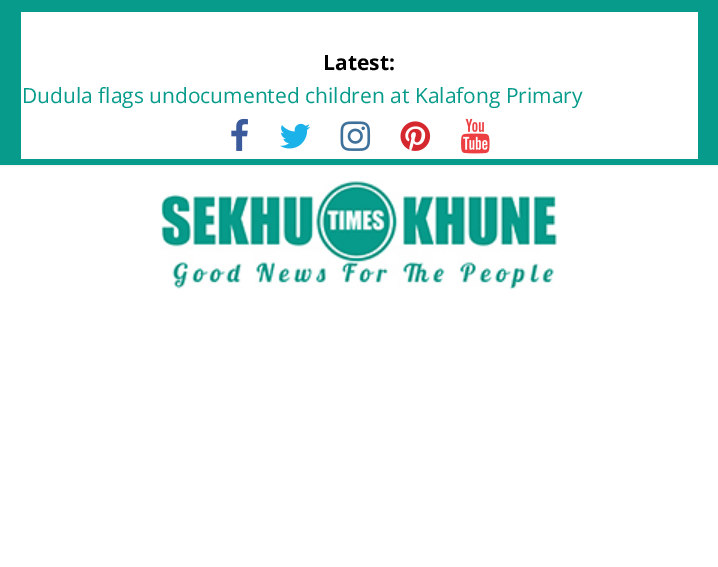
%!PS
<< /PageSize [718 567] /PageUsesTransparency true >> setpagedevice
/rgb { dup -16 bitshift 255 div exch dup -8 bitshift 255 and 255 div exch 255 and 255 div setrgbcolor } def
/font { [ exch dup neg 0 0 3 -1 roll 0 0 ] selectfont } def
/text { moveto show } def
/alpha { dup .setfillconstantalpha .setstrokeconstantalpha } def
/roundrect { 5 dict begin { /r /h /w /y /x } { exch def } forall
  x r add y moveto x w add y 2 copy h add r arct x w add y h add x 1 index r arct
  x y h add x y r arct x y 2 copy exch w add exch r arct closepath end } def
/shadow { 12 dict begin { /a /b /q /h /w /y /x } { exch def } forall gsave /was 0 def
  9 -2 -9 { dup b mul 4 div /e exch def 1 sub .425 mul 2.718 exch exp 1 add a .99 .min exch div /now exch def
    1 1 now sub 1 was sub div sub alpha /was now def
    w h .min e 2 mul add 0 gt { x e sub y e sub w e 2 mul add h e 2 mul add
      q e add b .6 mul add w h .min 2 div e add .min 0 .max roundrect fill } if } for grestore end } def
/picture { 5 dict begin { /h /w /y /x /name } { exch def } forall
  gsave x y translate w h scale
  w h 8 [w 0 0 h 0 0] name (r) file false 3 colorimage grestore end } def
0 .pushpdf14devicefilter
0 567 translate 1 -1 scale
4 setmiterlimit
/s1 { /OpenSans-Bold 21 font 16#000000 rgb } def
/s2 { /OpenSans-Regular 21 font 16#079B8B rgb } def
16#FFFFFF rgb
0 0 718 567 rectfill
16#000000 rgb
0 0 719 165 0 1.5 0.1 shadow
16#079B8B rgb
0 0 718 165 rectfill
16#FFFFFF rgb
21 12 677 147 rectfill
(pic1.raw) 231 118 17 33 picture
(pic2.raw) 280 123 30 26 picture
(pic3.raw) 340 121 31 30 picture
(pic4.raw) 400 121 31 30 picture
(pic5.raw) 461 118 29 36 picture
s1
(Latest:) 323 70 text
s2
(Dudula flags undocumented children at Kalafong Primary) 22 103 text
(pic6.raw) 161 181 396 109 picture
.poppdf14devicefilter showpage
